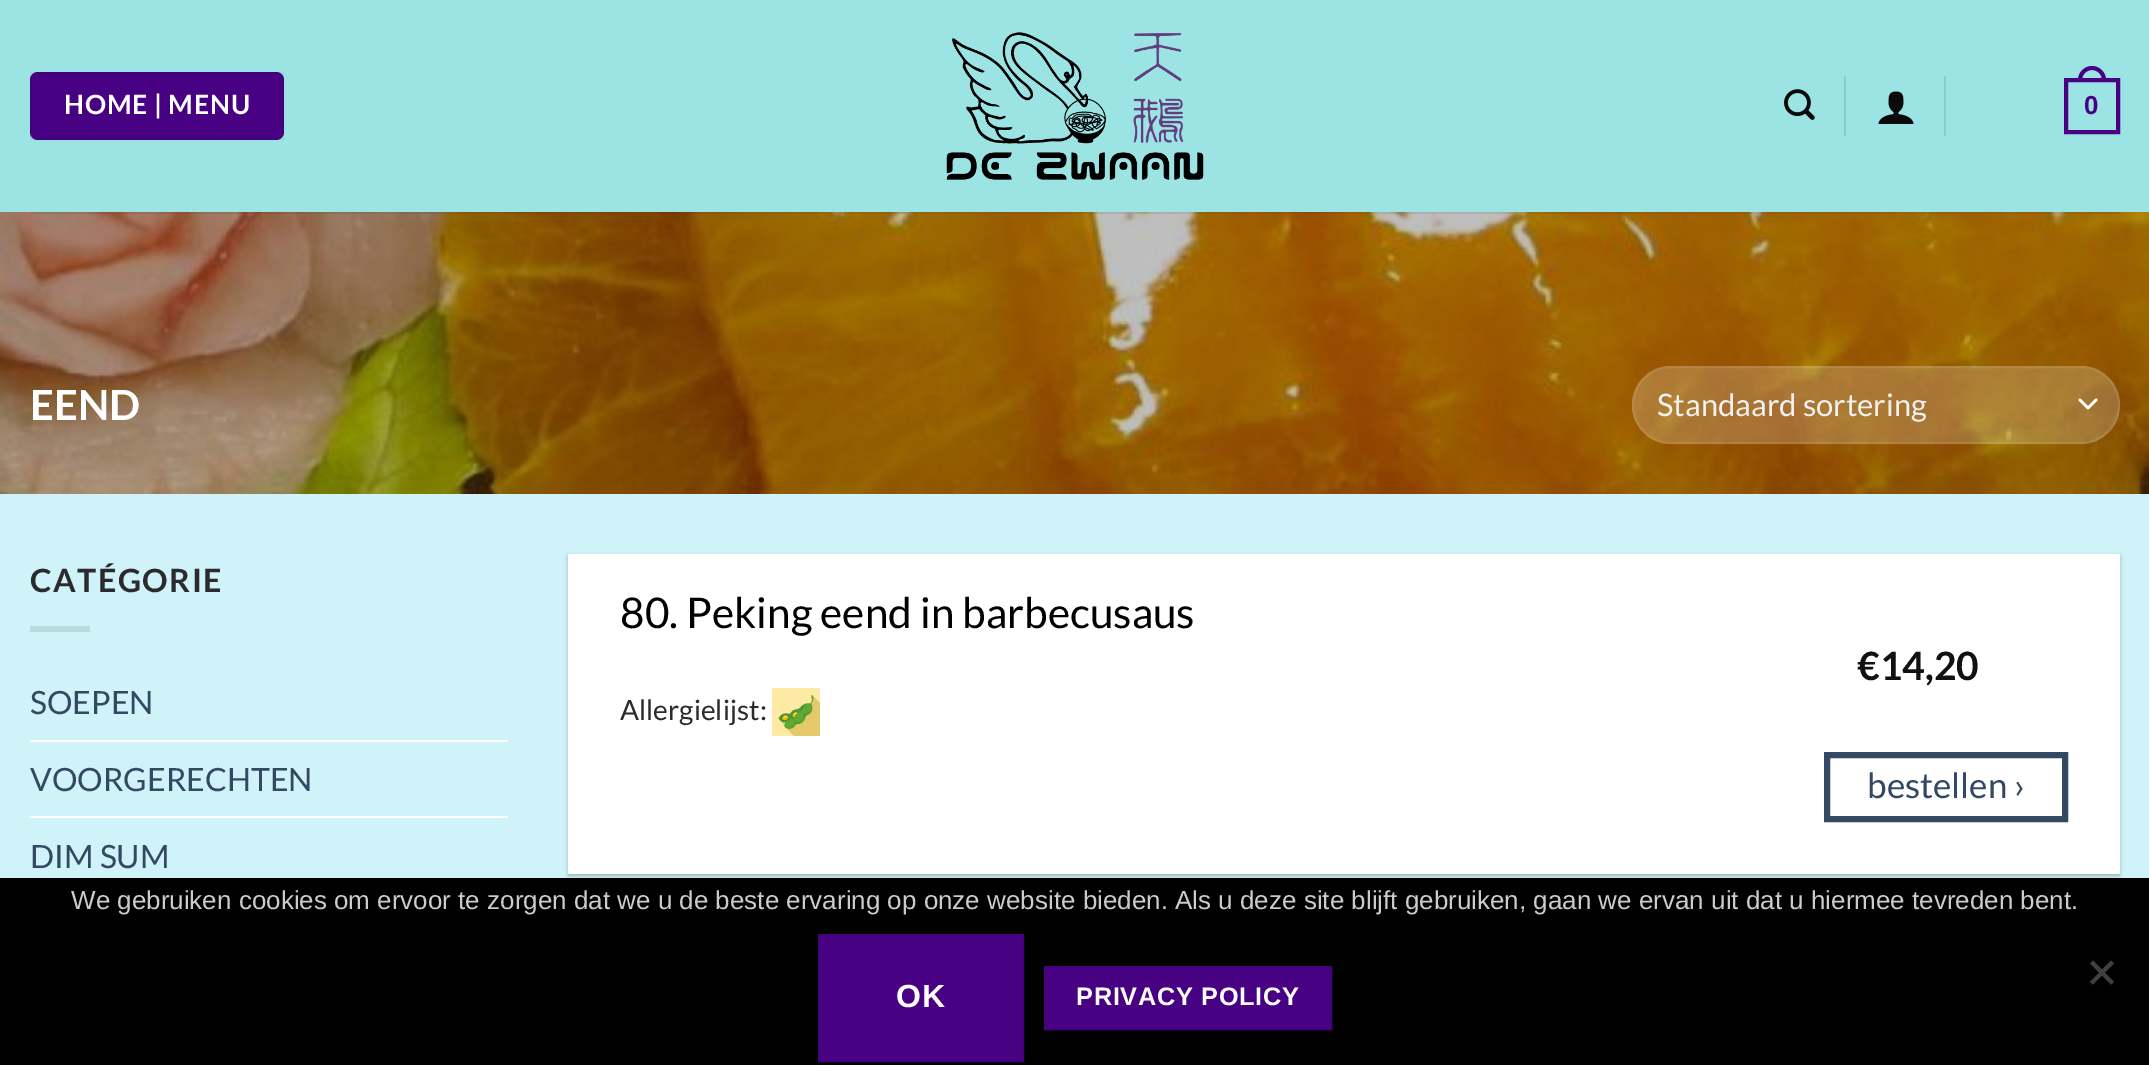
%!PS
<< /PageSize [2149 1065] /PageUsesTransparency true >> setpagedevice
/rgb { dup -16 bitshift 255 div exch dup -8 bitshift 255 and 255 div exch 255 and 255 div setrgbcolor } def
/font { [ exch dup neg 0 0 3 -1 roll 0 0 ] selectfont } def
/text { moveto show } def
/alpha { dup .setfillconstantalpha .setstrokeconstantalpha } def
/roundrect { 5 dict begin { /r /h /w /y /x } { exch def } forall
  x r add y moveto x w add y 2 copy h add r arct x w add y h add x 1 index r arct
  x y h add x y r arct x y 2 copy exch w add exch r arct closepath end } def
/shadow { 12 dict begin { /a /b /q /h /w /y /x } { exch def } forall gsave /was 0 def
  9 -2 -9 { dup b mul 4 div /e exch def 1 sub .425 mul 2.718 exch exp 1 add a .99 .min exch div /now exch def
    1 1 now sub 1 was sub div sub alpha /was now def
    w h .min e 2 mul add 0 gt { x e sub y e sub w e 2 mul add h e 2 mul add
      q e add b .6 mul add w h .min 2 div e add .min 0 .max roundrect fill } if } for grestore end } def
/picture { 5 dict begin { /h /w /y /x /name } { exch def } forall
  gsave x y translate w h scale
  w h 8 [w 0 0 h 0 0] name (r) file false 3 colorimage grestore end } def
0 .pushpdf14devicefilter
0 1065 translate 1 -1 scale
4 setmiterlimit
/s1 { /Lato-Bold 41.5 font 16#FFFFFF rgb } def
/s2 { /Lato-Regular 31 font 16#F1F1F1 rgb } def
/s3 { /Lato-Regular 32 font 16#334862 rgb } def
/s4 { /Lato-Regular 42.25 font 16#000000 rgb } def
/s5 { /Lato-Bold 39 font 16#111111 rgb } def
/s6 { /Lato-Regular 28 font 16#2B2B2B rgb } def
/s7 { /Lato-Regular 35 font 16#334862 rgb } def
/s8 { /LiberationSans-Regular 26 font 16#CCCCCC rgb } def
16#D0F3FA rgb
0 0 2149 1065 rectfill
16#9CE3E4 rgb
0 0 2149 212 rectfill
16#480183 rgb
30 72 254 68 8 roundrect fill
0.05 alpha
16#000000 rgb
2 setlinewidth
31 73 252 66 rectstroke
/Lato-Bold 26.5 font
1 alpha
16#FFFFFF rgb
64 114 moveto 0.75 0 (HOME | MENU) ashow
(pic1.raw) 946 32 258 148 picture
(pic2.raw) 1784 89 31 31 picture
16#8CCCCD rgb
1844 76 2 60 rectfill
(pic3.raw) 1878 91 36 33 picture
1944 76 2 60 rectfill
16#480183 rgb
4 setlinewidth
2066 80 52 52 rectstroke
2092 66 moveto 2099.5 66 2106 72.5 2106 80 curveto 2106 82 lineto 2078 82 lineto 2078 80 lineto 2078 72.5 2084.5 66 2092 66 curveto closepath 2092 70 moveto 2097.5 70 2102 74.5 2102 80 curveto 2102 82 lineto 2082 82 lineto 2082 80 lineto 2082 74.5 2086.5 70 2092 70 curveto closepath eofill
/LiberationSans-Bold 26 font
2084 114 moveto 1 0 (0) ashow
(pic4.raw) 0 212 2149 282 picture
0.1 alpha
16#2B2B2B rgb
30 212 2090 2 rectfill
1 alpha
s1
(EEND) 30 420 text
0.2 alpha
1632 366 488 78 39 roundrect fill
1 alpha
2.7 setlinewidth
1 setlinecap
1 setlinejoin
2080 400 moveto 2088 408 lineto 2096 400 lineto stroke
0.09 alpha
2 setlinewidth
0 setlinecap
0 setlinejoin
1633 367 486 76 38 roundrect stroke
1 alpha
s2
(Standaard sortering) 1657 416 text
/Lato-Bold 32 font
16#2B2B2B rgb
30 592 moveto 1.5 0 (CATÉGORIE) ashow
16#BBDBE1 rgb
30 626 60 6 rectfill
s3
(SOEPEN) 30 714 text
16#FFFFFF rgb
30 740 478 2 rectfill
s3
(VOORGERECHTEN) 30 791 text
16#FFFFFF rgb
30 816 478 2 rectfill
s3
(DIM SUM) 30 868 text
16#000000 rgb
568 556 1552 320 0 2 0.24 shadow
572 560 1544 312 0 3 0.12 shadow
16#FFFFFF rgb
568 554 1552 320 rectfill
s4
(80. Peking eend in barbecusaus) 620 628 text
s5
(€14,20) 1857 680 text
s6
(Allergielijst:) 620 720 text
(pic5.raw) 772 688 48 48 picture
16#334862 rgb
6 setlinewidth
1827 755 238 64 rectstroke
s7
(bestellen ›) 1867 798 text
16#000000 rgb
0 878 2149 187 rectfill
s8
(We gebruiken cookies om ervoor te zorgen dat we u de beste ervaring op onze website bieden. Als u deze site blijft gebruiken, gaan we ervan uit dat u hiermee tevreden bent.) 71 909 text
16#404040 rgb
2111 960.5 moveto 2114 963.5 lineto 2093 984.5 lineto 2090 982 lineto closepath fill
2090 963.5 moveto 2093 960.5 lineto 2114 982 lineto 2111 984.5 lineto closepath fill
16#480183 rgb
819 935 moveto 1023 935 lineto 1023 1061 lineto 819 1061 lineto closepath gsave fill grestore
16#44017C rgb
2 setlinewidth
stroke
/LiberationSans-Bold 32 font
16#FFFFFF rgb
896 1007 moveto 1 0 (OK) ashow
16#480183 rgb
1045 967 moveto 1331 967 lineto 1331 1029 lineto 1045 1029 lineto closepath gsave fill grestore
16#44017C rgb
stroke
/LiberationSans-Bold 25.25 font
16#FFFFFF rgb
1076 1005 moveto 0.75 0 (PRIVACY POLICY) ashow
.poppdf14devicefilter showpage
